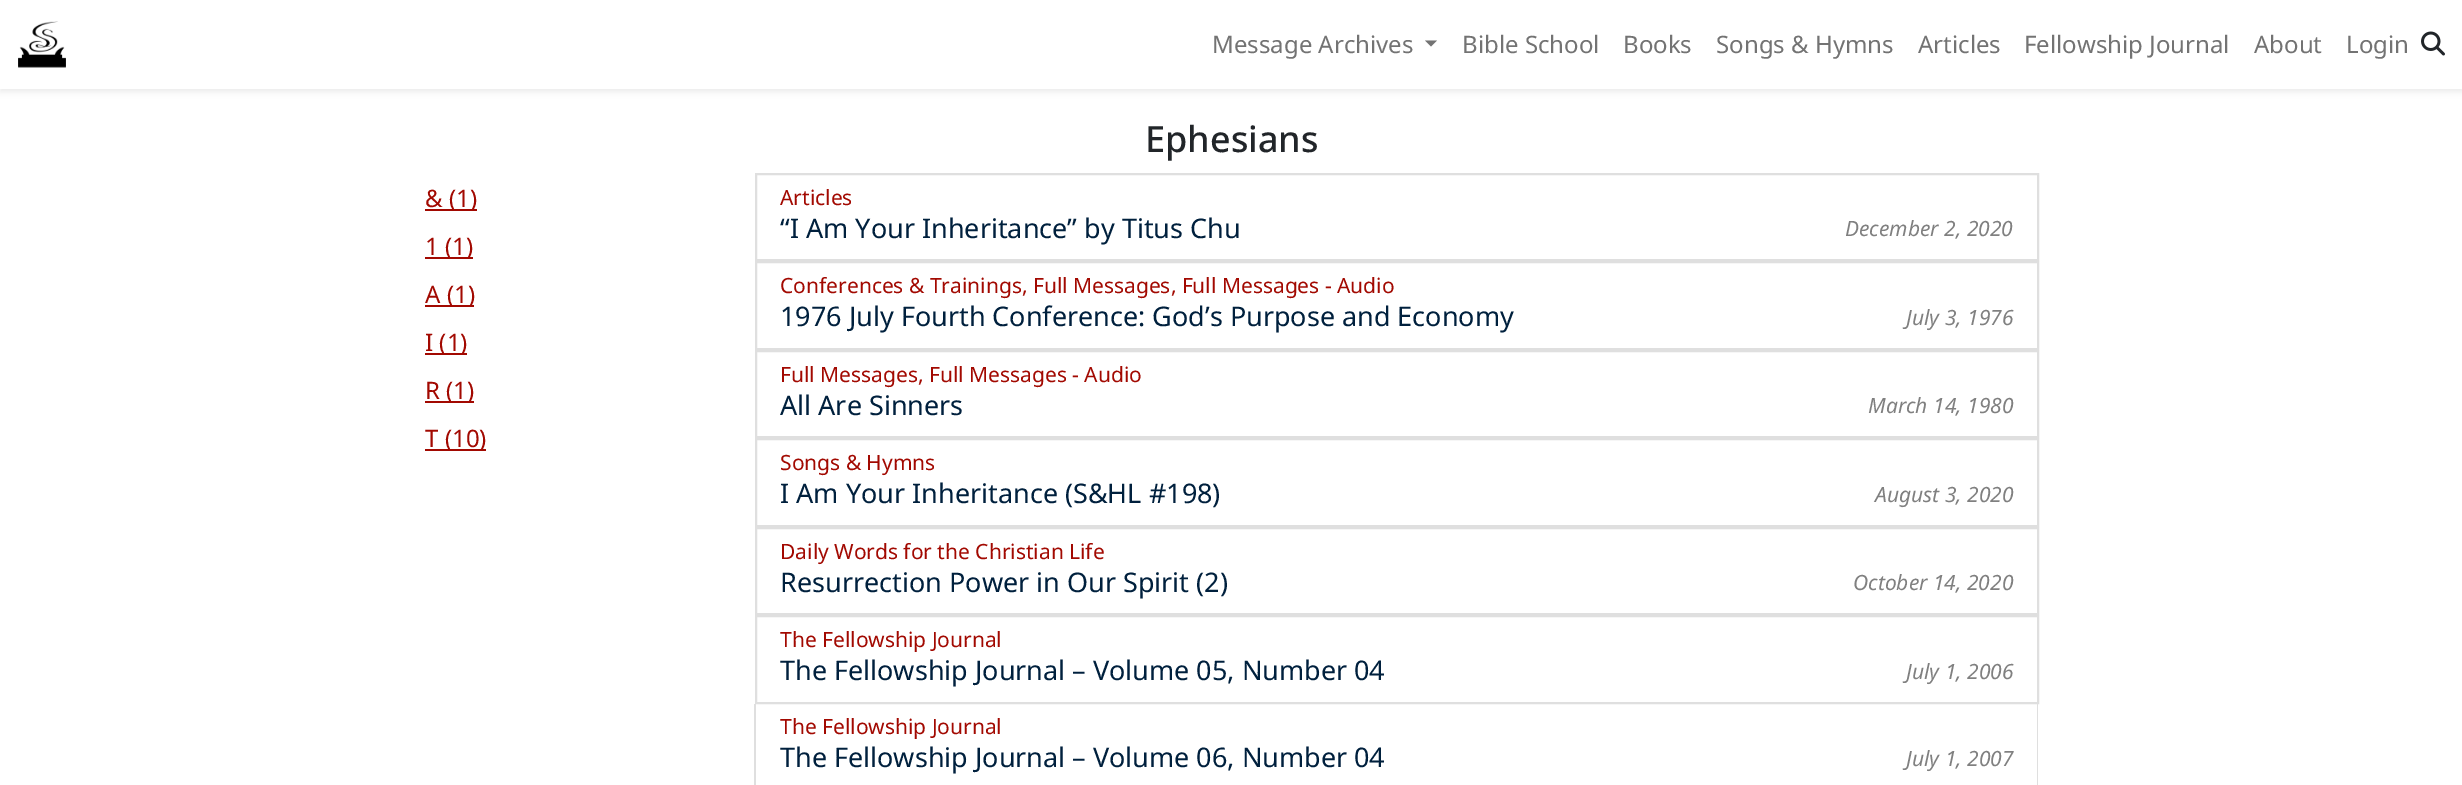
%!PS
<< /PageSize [2462 785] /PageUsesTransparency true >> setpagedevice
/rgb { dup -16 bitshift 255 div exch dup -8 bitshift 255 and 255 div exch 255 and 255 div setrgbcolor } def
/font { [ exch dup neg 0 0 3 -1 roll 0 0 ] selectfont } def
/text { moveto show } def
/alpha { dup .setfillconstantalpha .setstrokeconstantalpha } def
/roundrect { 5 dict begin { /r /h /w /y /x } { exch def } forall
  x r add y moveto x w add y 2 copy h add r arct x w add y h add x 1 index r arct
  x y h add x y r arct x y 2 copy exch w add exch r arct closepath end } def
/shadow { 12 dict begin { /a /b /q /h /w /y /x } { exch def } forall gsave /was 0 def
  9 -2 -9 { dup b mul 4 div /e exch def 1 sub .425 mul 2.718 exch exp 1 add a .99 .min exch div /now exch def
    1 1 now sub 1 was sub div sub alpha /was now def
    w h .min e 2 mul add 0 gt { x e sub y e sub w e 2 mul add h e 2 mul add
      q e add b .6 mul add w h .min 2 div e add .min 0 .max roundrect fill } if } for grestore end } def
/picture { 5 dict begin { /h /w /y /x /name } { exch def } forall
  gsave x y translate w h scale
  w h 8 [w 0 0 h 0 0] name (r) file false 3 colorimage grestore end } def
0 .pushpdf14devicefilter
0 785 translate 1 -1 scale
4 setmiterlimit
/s1 { /NotoSans-Regular 24 font 16#737373 rgb } def
/s2 { /NotoSans-Medium 36 font 16#212529 rgb } def
/s3 { /NotoSans-Regular 24 font 16#A20901 rgb } def
/s4 { /NotoSans-Regular 21 font 16#A20901 rgb } def
/s5 { /NotoSans-Regular 27 font 16#00203D rgb } def
/s6 { /NotoSans-Italic 21 font 16#808080 rgb } def
16#FFFFFF rgb
0 0 2462 785 rectfill
16#000000 rgb
0 3 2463 89 0 3 0.07 shadow
16#FFFFFF rgb
0 0 2462 89 rectfill
(pic1.raw) 18 21 48 47 picture
s1
(Message Archives) 1212 53 text
1425 40.5 moveto 1437 40.5 lineto 1431 46.5 lineto closepath fill
(Bible School) 1462 53 text
(Books) 1623 53 text
(Songs & Hymns) 1716 53 text
(Articles) 1918 53 text
(Fellowship Journal) 2024 53 text
(About) 2254 53 text
(Login) 2346 53 text
(pic2.raw) 2421 31 24 25 picture
s2
(Ephesians) 1145 152 text
16#A20901 rgb
425 209 52 2 rectfill
s3
(& \(1\)) 425 207 text
425 257 48 2 rectfill
(1 \(1\)) 425 255 text
425 305 49 2 rectfill
(A \(1\)) 425 303 text
425 353 42 2 rectfill
(I \(1\)) 425 351 text
425 401 49 2 rectfill
(R \(1\)) 425 399 text
425 449 61 2 rectfill
(T \(10\)) 425 447 text
16#DFDFDF rgb
2 setlinewidth
756 174 1282 86 rectstroke
s4
(Articles) 780 205 text
s5
(“I Am Your Inheritance” by Titus Chu) 780 238 text
s6
(December 2, 2020) 1845 236 text
16#DFDFDF rgb
756 262 1282 87 rectstroke
s4
(Conferences & Trainings, Full Messages, Full Messages - Audio) 780 293 text
s5
(1976 July Fourth Conference: God’s Purpose and Economy) 780 326 text
s6
(July 3, 1976) 1906 325 text
16#DFDFDF rgb
756 351 1282 86 rectstroke
s4
(Full Messages, Full Messages - Audio) 780 382 text
s5
(All Are Sinners) 780 415 text
s6
(March 14, 1980) 1868 413 text
16#DFDFDF rgb
756 439 1282 87 rectstroke
s4
(Songs & Hymns) 780 470 text
s5
(I Am Your Inheritance \(S&HL #198\)) 780 503 text
s6
(August 3, 2020) 1875 502 text
16#DFDFDF rgb
756 528 1282 86 rectstroke
s4
(Daily Words for the Christian Life) 780 559 text
s5
(Resurrection Power in Our Spirit \(2\)) 780 592 text
s6
(October 14, 2020) 1853 590 text
16#DFDFDF rgb
756 616 1282 87 rectstroke
s4
(The Fellowship Journal) 780 647 text
s5
(The Fellowship Journal – Volume 05, Number 04) 780 680 text
s6
(July 1, 2006) 1906 679 text
16#DFDFDF rgb
2038 704 moveto 2038 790 lineto 2037 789 lineto 2037 704 lineto closepath fill
754 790 moveto 754 704 lineto 756 704 lineto 756 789 lineto closepath fill
s4
(The Fellowship Journal) 780 734 text
s5
(The Fellowship Journal – Volume 06, Number 04) 780 767 text
s6
(July 1, 2007) 1906 766 text
.poppdf14devicefilter showpage
